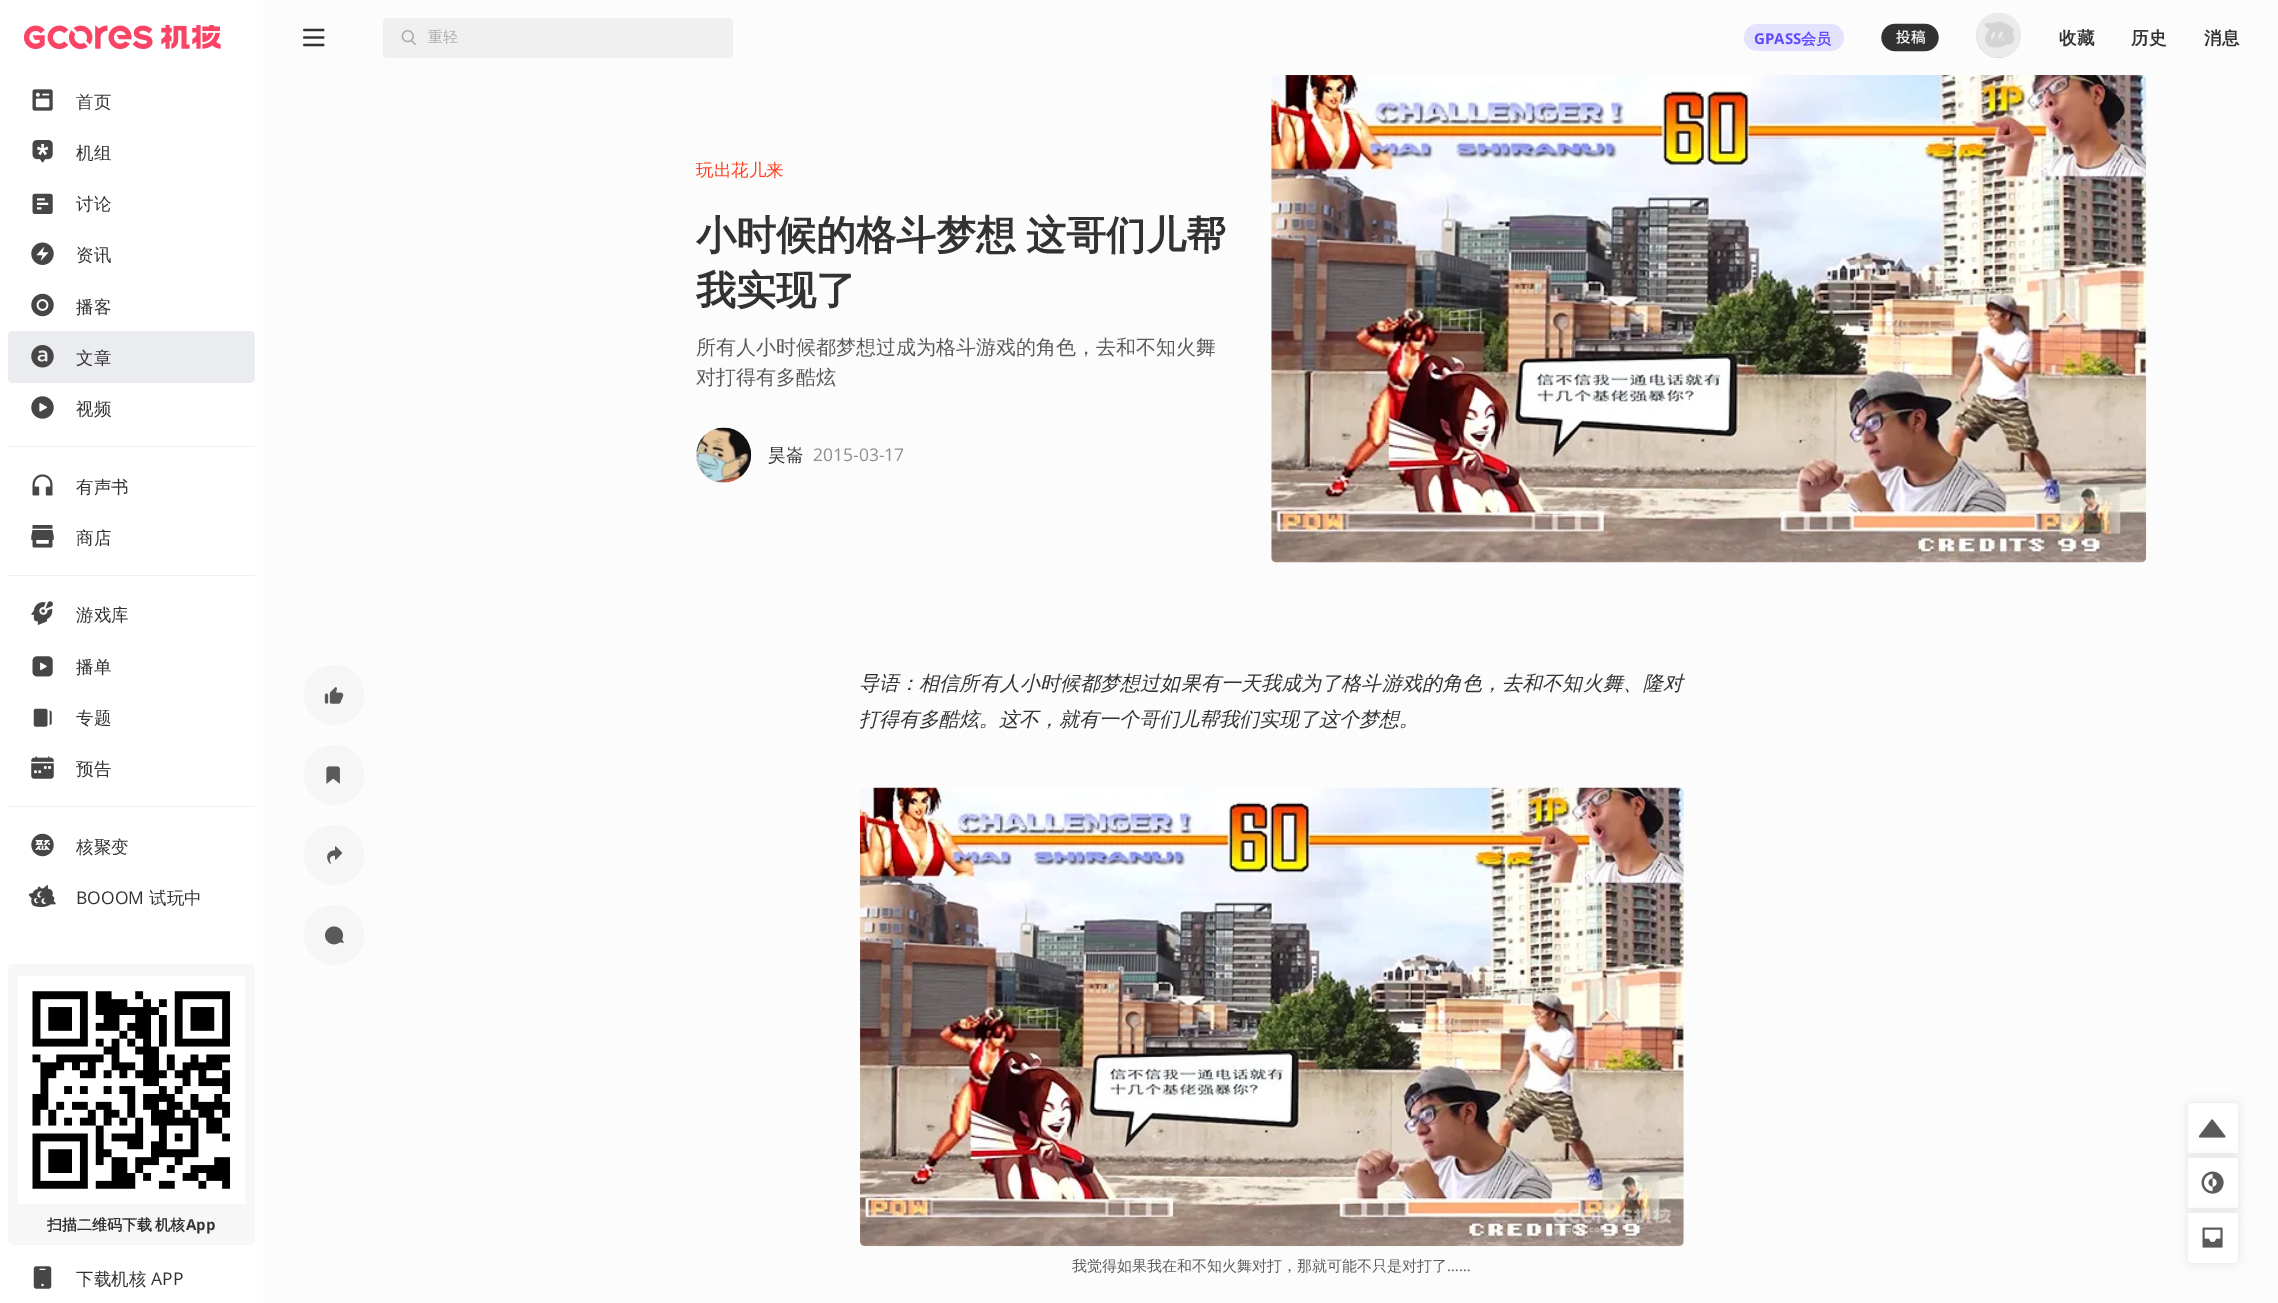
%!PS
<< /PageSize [2278 1303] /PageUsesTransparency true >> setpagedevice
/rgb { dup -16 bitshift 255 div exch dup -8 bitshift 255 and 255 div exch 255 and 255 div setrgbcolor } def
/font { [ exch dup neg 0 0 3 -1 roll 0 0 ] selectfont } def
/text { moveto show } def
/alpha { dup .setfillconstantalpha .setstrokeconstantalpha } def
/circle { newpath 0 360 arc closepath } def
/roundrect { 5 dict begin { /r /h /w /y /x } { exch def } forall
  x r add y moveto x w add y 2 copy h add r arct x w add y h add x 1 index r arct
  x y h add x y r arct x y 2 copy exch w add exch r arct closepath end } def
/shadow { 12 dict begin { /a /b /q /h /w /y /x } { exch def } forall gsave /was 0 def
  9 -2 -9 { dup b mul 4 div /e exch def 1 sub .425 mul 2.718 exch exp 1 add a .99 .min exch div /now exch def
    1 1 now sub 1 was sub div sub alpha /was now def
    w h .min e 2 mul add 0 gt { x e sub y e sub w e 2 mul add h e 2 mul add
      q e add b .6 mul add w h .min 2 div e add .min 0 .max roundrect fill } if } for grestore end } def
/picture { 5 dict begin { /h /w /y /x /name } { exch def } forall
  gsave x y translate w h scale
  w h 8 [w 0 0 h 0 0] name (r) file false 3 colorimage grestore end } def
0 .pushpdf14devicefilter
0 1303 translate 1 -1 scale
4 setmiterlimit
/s1 { /WenQuanYiZenHei-Medium 17.5 font 16#323232 rgb } def
/s2 { /OpenSans-Regular 17.5 font 16#323232 rgb } def
/s3 { /WenQuanYiZenHei-Bold 15 font 16#323232 rgb } def
/s4 { /OpenSans-Bold 15 font 16#323232 rgb } def
/s5 { /WenQuanYiZenHei-Medium 15 font 16#AAAAAA rgb } def
/s6 { /OpenSans-Bold 15 font 16#5E4BFF rgb } def
/s7 { /WenQuanYiZenHei-Bold 15 font 16#5E4BFF rgb } def
/s8 { /WenQuanYiZenHei-Bold 17.5 font 16#323232 rgb } def
/s9 { /WenQuanYiZenHei-Medium 17.5 font 16#FF3D1D rgb } def
/s10 { /WenQuanYiZenHei-Bold 40 font 16#323232 rgb } def
/s11 { /WenQuanYiZenHei-Medium 20 font 16#5A5A5A rgb } def
/s12 { /OpenSans-Regular 17.5 font 16#8E8E93 rgb } def
/s13 { /WenQuanYiZenHei-MediumItalic 20 font 16#323232 rgb } def
/s14 { /WenQuanYiZenHei-Medium 15 font 16#5A5A5A rgb } def
/s15 { /OpenSans-Regular 15 font 16#5A5A5A rgb } def
16#FCFCFC rgb
0 0 2278 1303 rectfill
16#FFFFFF rgb
0 0 263 1303 rectfill
(pic1.raw) 23 25 198 25 picture
(pic2.raw) 32 89 21 22 picture
s1
(首页) 76 108 text
(pic3.raw) 32 140 21 23 picture
(机组) 76 159 text
(pic4.raw) 32 193 21 21 picture
(讨论) 76 210 text
(pic5.raw) 31 242 23 23 picture
(资讯) 76 261 text
(pic6.raw) 31 293 23 24 picture
(播客) 76 313 text
16#EAECEF rgb
8 331 247 52 5 roundrect fill
(pic7.raw) 31 345 23 23 picture
s1
(文章) 76 364 text
(pic8.raw) 31 396 23 23 picture
(视频) 76 415 text
16#F0F0F0 rgb
8 446 247 1 rectfill
(pic9.raw) 32 474 21 22 picture
s1
(有声书) 76 493 text
(pic10.raw) 31 525 23 23 picture
(商店) 76 544 text
16#F0F0F0 rgb
8 575 247 1 rectfill
(pic11.raw) 31 601 22 24 picture
s1
(游戏库) 76 621 text
(pic12.raw) 32 656 21 21 picture
(播单) 76 673 text
(pic13.raw) 33 708 19 19 picture
(专题) 76 724 text
(pic14.raw) 31 756 23 23 picture
(预告) 76 775 text
16#F0F0F0 rgb
8 806 247 1 rectfill
(pic15.raw) 31 833 23 24 picture
s1
(核聚变) 76 853 text
(pic16.raw) 28 885 28 22 picture
s2
(BOOOM) 76 904 text
s1
(试玩中) 149 904 text
16#F7F7F8 rgb
8 964 247 281 5 roundrect fill
16#FFFFFF rgb
18 976 227 228 rectfill
(pic17.raw) 32 991 198 198 picture
s3
(扫描二维码) 47 1230 text
122 1230 moveto -1 0 32 (下载 机核) widthshow
s4
(App) 186 1230 text
(pic18.raw) 33 1266 19 23 picture
s1
(下载机核) 76 1285 text
s2
(APP) 151 1285 text
(pic19.raw) 303 28 22 19 picture
16#F0F0F0 rgb
383 18 350 40 5 roundrect fill
(pic20.raw) 401 30 15 15 picture
s5
(重轻) 428 42 text
16#E5E2FF rgb
1744 24 100 27 13.5 roundrect fill
s6
(GPASS) 1754 44 text
s7
(会员) 1801 44 text
(pic21.raw) 1881 23 58 29 picture
16#DCDCDC rgb
1998.5 35.5 22.5 circle fill
(pic22.raw) 1976 12 45 45 picture
s8
(收藏) 2059 44 text
(历史) 2131 44 text
(消息) 2204 44 text
s9
(玩出花儿来) 696 176 text
/WenQuanYiZenHei-Bold 40 font
16#323232 rgb
696 249 moveto -2 0 32 (小时候的格斗梦想 这哥们儿帮) widthshow
(我实现了) 696 304 text
s11
(所有人小时候都梦想过成为格斗游戏的角色，去和不知火舞) 696 354 text
(对打得有多酷炫) 696 384 text
16#DCDCDC rgb
723.5 455.5 27.5 circle fill
(pic23.raw) 696 427 56 56 picture
s1
(昊崙) 768 461 text
s12
(2015-03-17) 813 461 text
(pic24.raw) 1271 75 876 488 picture
16#F6F6F6 rgb
334 695 30 circle fill
(pic25.raw) 324 687 20 17 picture
334 775 30 circle fill
(pic26.raw) 326 766 14 18 picture
334 855 30 circle fill
(pic27.raw) 327 846 16 18 picture
334 935 30 circle fill
(pic28.raw) 325 926 19 19 picture
/WenQuanYiZenHei-MediumItalic 20 font
16#323232 rgb
859 690 moveto 0.1 0 (导语：相信所有人小时候都梦想过如果有一天我成为了格斗游戏的角色，去和不知火舞、隆对) ashow
(打得有多酷炫。这不，就有一个哥们儿帮我们实现了这个梦想。) 859 726 text
(pic29.raw) 860 787 824 460 picture
s14
(我觉得如果我在和不知火舞对打，那就可能不只是对打了) 1072 1271 text
s15
(……) 1447 1271 text
16#000000 rgb
2188 1103 50 50 5 5 0.1 shadow
16#FFFFFF rgb
2193 1103 moveto 2233 1103 lineto 2236 1103 2238 1105 2238 1108 curveto 2238 1153 lineto 2188 1153 lineto 2188 1108 lineto 2188 1105 2190 1103 2193 1103 curveto closepath fill
(pic30.raw) 2198 1119 28 19 picture
16#000000 rgb
2188 1158 50 50 0 5 0.1 shadow
16#FFFFFF rgb
2188 1158 50 50 rectfill
(pic31.raw) 2201 1171 23 23 picture
16#000000 rgb
2188 1213 50 50 5 5 0.1 shadow
16#FFFFFF rgb
2188 1213 moveto 2238 1213 lineto 2238 1258 lineto 2238 1261 2236 1263 2233 1263 curveto 2193 1263 lineto 2190 1263 2188 1261 2188 1258 curveto closepath fill
(pic32.raw) 2202 1227 21 21 picture
.poppdf14devicefilter showpage
